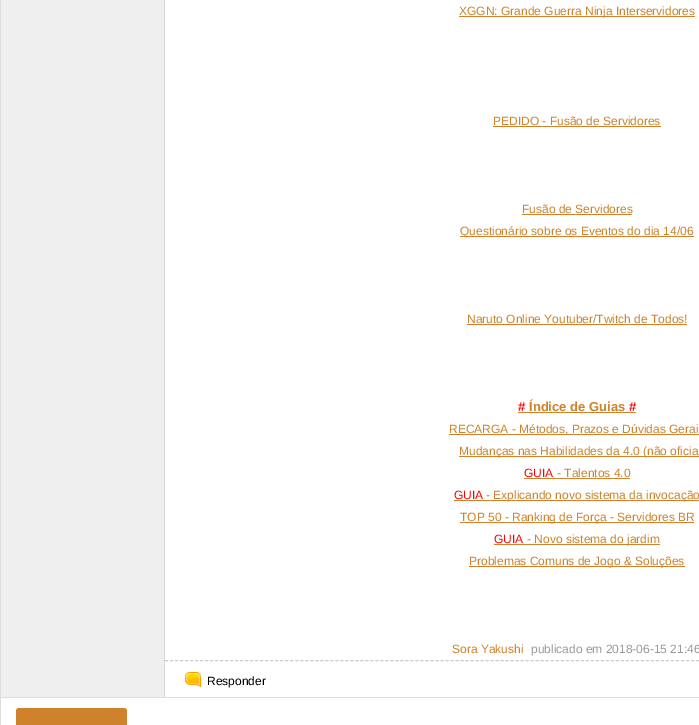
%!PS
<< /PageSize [699 725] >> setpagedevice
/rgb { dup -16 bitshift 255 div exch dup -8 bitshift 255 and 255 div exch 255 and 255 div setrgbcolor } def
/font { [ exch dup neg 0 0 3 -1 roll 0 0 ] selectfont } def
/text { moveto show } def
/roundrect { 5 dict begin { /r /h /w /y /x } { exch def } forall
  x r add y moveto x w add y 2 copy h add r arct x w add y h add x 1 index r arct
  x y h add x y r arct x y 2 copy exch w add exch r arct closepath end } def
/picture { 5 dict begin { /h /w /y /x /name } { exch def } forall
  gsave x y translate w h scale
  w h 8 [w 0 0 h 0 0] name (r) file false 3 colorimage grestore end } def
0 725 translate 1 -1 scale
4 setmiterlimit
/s1 { /LiberationSans-Regular 12 font 16#CE822B rgb } def
/s2 { /LiberationSans-Bold 13 font 16#FF0000 rgb } def
/s3 { /LiberationSans-Bold 13 font 16#CE822B rgb } def
/s4 { /LiberationSans-Regular 12 font 16#FF0000 rgb } def
/s5 { /LiberationSans-Regular 12 font 16#999999 rgb } def
/s6 { /LiberationSans-Regular 12 font 16#000000 rgb } def
16#DDDDDD rgb
0 0 699 725 rectfill
16#EFEFEF rgb
1 0 163 697 rectfill
16#FFFFFF rgb
165 0 534 697 rectfill
16#D6D6D6 rgb
164 0 1 697 rectfill
16#CE822B rgb
459 16 236 1 rectfill
s1
(XGGN: Grande Guerra Ninja Interservidores) 459 15 text
(PEDIDO - Fusão de Servidores) 493 125 text
493 126 168 1 rectfill
(Fusão de Servidores) 522 213 text
522 214 110 1 rectfill
460 236 234 1 rectfill
(Questionário sobre os Eventos do dia 14/06) 460 235 text
(Naruto Online Youtuber/Twitch de Todos!) 467 323 text
467 324 220 1 rectfill
s2
(#) 518 411 text
16#CE822B rgb
518 412 118 1 rectfill
(Índice de Guias) 529 411 text
s2
(#) 629 411 text
16#CE822B rgb
449 434 250 1 rectfill
s1
(RECARGA - Métodos, Prazos e Dúvidas Gerai) 449 433 text
459 456 240 1 rectfill
(Mudanças nas Habilidades da 4.0 \(não oficia) 459 455 text
s4
(GUIA) 524 477 text
16#CE822B rgb
524 478 106 1 rectfill
(- Talentos 4.0) 557 477 text
s4
(GUIA) 454 499 text
16#CE822B rgb
454 500 245 1 rectfill
(- Explicando novo sistema da invocação) 486 499 text
460 522 234 1 rectfill
(TOP 50 - Ranking de Força - Servidores BR) 460 521 text
s4
(GUIA) 494 543 text
16#CE822B rgb
494 544 166 1 rectfill
(- Novo sistema do jardim) 527 543 text
469 566 216 1 rectfill
(Problemas Comuns de Jogo & Soluções) 469 565 text
(Sora Yakushi) 452 653 text
s5
(publicado em 2018-06-15 21:46) 531 653 text
16#CBCBCB rgb
[3 2.01] 0 setdash
165 660.5 moveto 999 660.5 lineto stroke
(pic1.raw) 185 672 16 15 picture
s6
(Responder) 207 685 text
16#FFFFFF rgb
1 698 698 27 rectfill
16#CE822B rgb
16 708 111 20 3 roundrect fill
showpage
